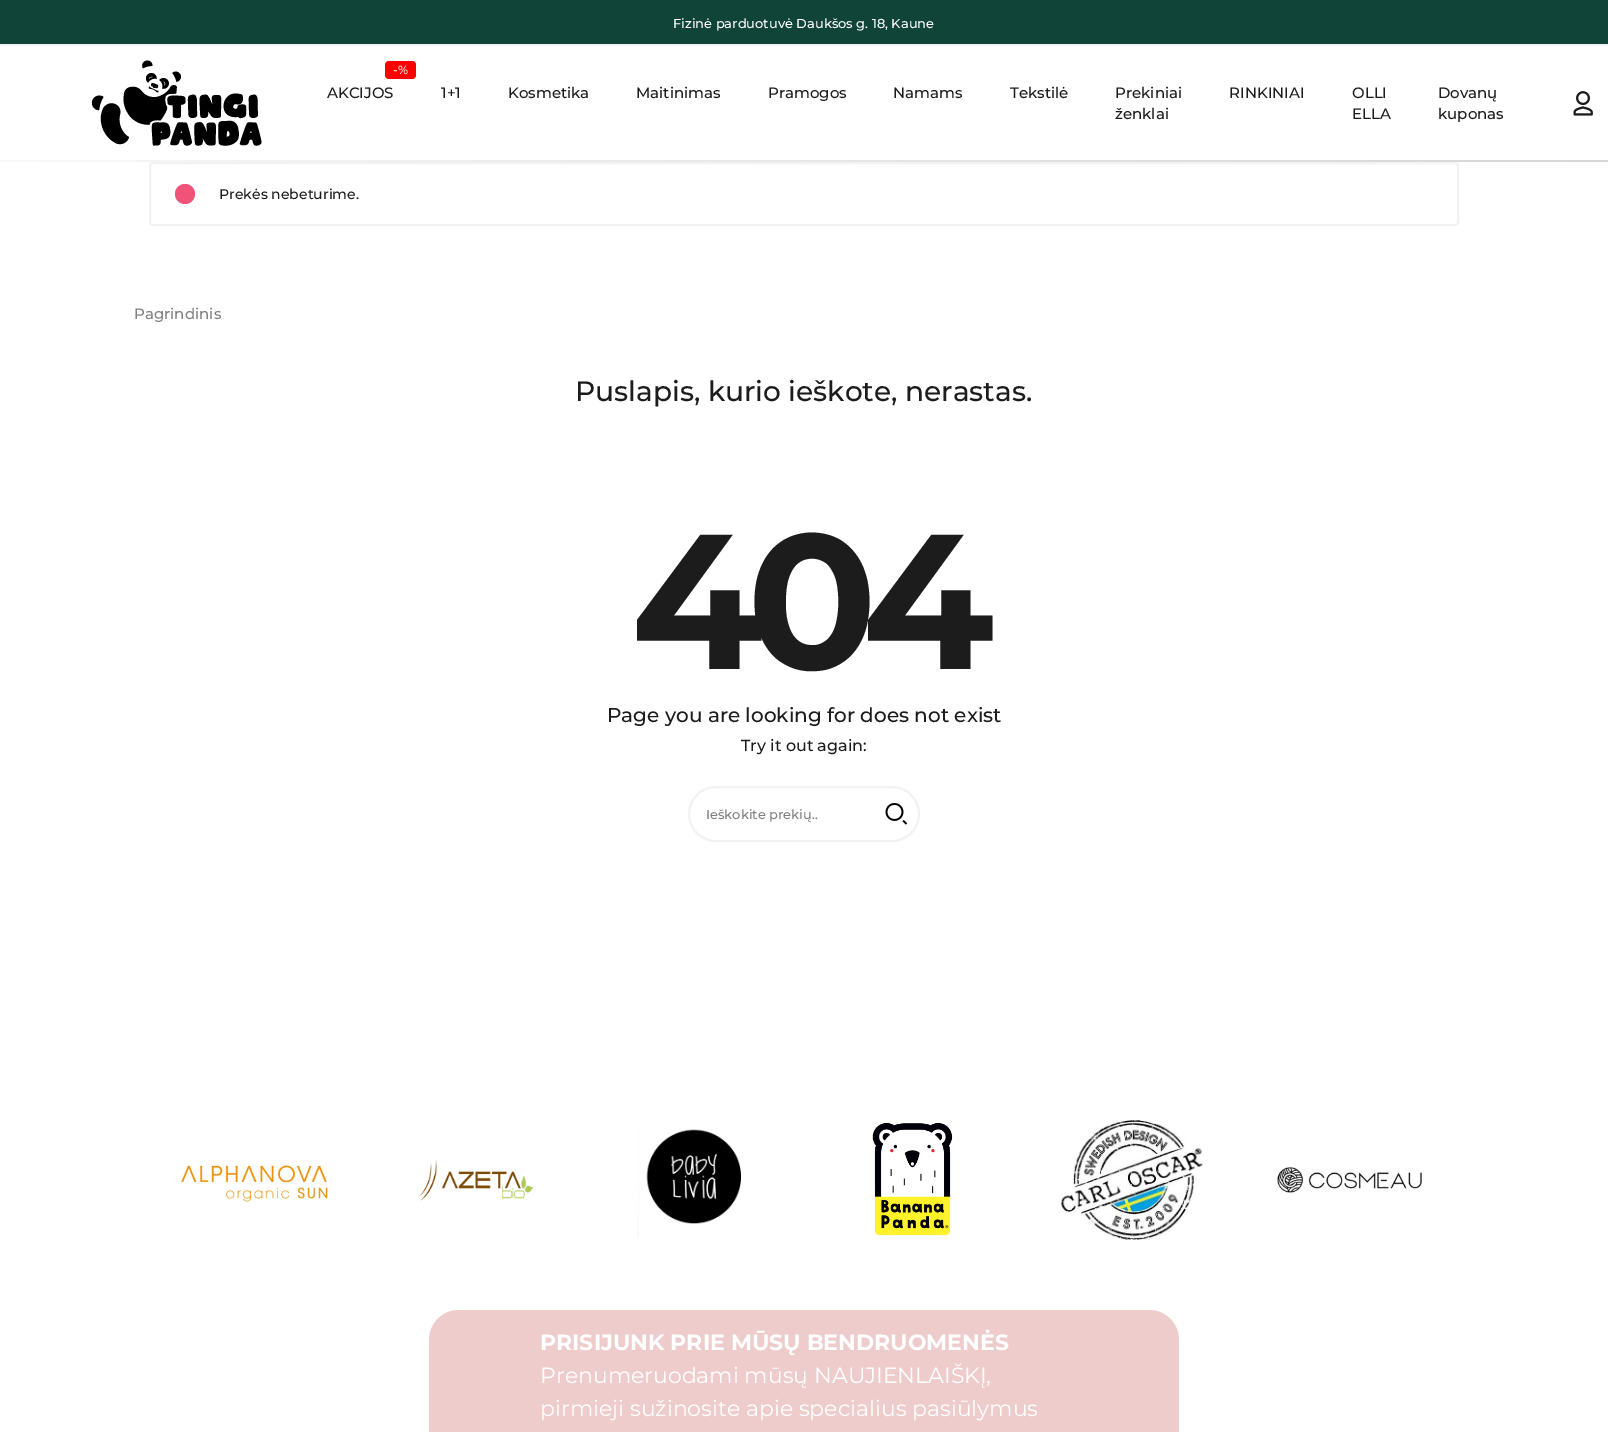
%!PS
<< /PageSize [1608 1432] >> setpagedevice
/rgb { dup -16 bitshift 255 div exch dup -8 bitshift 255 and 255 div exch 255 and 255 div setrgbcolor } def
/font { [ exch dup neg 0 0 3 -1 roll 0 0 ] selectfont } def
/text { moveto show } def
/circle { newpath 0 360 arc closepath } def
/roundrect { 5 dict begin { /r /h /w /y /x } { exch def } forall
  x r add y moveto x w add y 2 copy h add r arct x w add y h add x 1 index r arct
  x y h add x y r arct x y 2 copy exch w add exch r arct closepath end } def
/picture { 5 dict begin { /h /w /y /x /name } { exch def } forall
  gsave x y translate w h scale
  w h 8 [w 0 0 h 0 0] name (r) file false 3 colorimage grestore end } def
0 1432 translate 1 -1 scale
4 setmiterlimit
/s1 { /Montserrat-Medium 13 font 16#FFFFFF rgb } def
/s2 { /Montserrat-Medium 12 font 16#FFFFFF rgb } def
/s3 { /Montserrat-Medium 15 font 16#1C1C1C rgb } def
/s4 { /Montserrat-Medium 14 font 16#1C1C1C rgb } def
/s5 { /Montserrat-Medium 15 font 16#808080 rgb } def
/s6 { /Montserrat-Medium 28 font 16#1C1C1C rgb } def
/s7 { /Montserrat-Medium 20 font 16#1C1C1C rgb } def
/s8 { /Montserrat-Medium 16 font 16#1C1C1C rgb } def
/s9 { /Montserrat-Medium 13 font 16#808080 rgb } def
/s10 { /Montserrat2-Bold 22 font 16#FFFFFF rgb } def
/s11 { /Montserrat-Regular 22 font 16#FFFFFF rgb } def
16#FFFFFF rgb
0 0 1608 1432 rectfill
16#114439 rgb
0 0 1608 44 rectfill
s1
(Fizinė parduotuvė Daukšos g. 18, Kaune) 673 28 text
16#F2F2F2 rgb
0 44 1608 2 rectfill
(pic1.raw) 91 60 171 86 picture
16#FF0000 rgb
385 61 31 18 4 roundrect fill
s2
(-%) 393 74 text
s3
(AKCIJOS) 327 98 text
(1+1) 441 98 text
(Kosmetika) 508 98 text
(Maitinimas) 636 98 text
(Pramogos) 768 98 text
(Namams) 893 98 text
(Tekstilė) 1010 98 text
(Prekiniai) 1115 98 text
(ženklai) 1115 119 text
(RINKINIAI) 1229 98 text
(OLLI) 1352 98 text
(ELLA) 1352 119 text
(Dovanų) 1438 98 text
(kuponas) 1438 119 text
(pic2.raw) 1573 91 20 25 picture
gsave 0 160 moveto 1608 160 lineto 1608 162 lineto 0 162 lineto closepath clip newpath
<< /ShadingType 2 /ColorSpace /DeviceRGB /Coords [750 363 858 -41] /Extend [true true] /Function << /FunctionType 2 /Domain [0 1] /C0 [0.973 0.973 0.973] /C1 [0.839 0.839 0.839] /N 1 >> >> shfill grestore
16#F2F2F2 rgb
2 setlinewidth
150 163 1308 62 3 roundrect stroke
16#F05377 rgb
185 194 10 circle fill
s4
(Prekės nebeturime.) 219 199 text
s5
(Pagrindinis) 134 319 text
s6
(Puslapis, kurio ieškote, nerastas.) 575 401 text
/Montserrat-Bold 192 font
631 669 moveto -16 0 (404) ashow
s7
(Page you are looking for does not exist) 607 722 text
s8
(Try it out again:) 741 751 text
16#F2F2F2 rgb
689 787 230 54 27 roundrect stroke
s9
(Ieškokite prekių..) 706 819 text
(pic3.raw) 885 802 23 23 picture
(pic4.raw) 179 1164 151 40 picture
(pic5.raw) 419 1160 115 41 picture
(pic6.raw) 637 1129 105 109 picture
(pic7.raw) 872 1122 81 114 picture
(pic8.raw) 1061 1120 142 120 picture
(pic9.raw) 1277 1166 145 27 picture
16#EECCCC rgb
429 1310 750 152 30 roundrect fill
s10
(PRISIJUNK PRIE MŪSŲ BENDRUOMENĖS) 540 1350 text
s11
(Prenumeruodami mūsų NAUJIENLAIŠKĮ,) 540 1383 text
(pirmieji sužinosite apie specialius pasiūlymus) 540 1416 text
showpage
